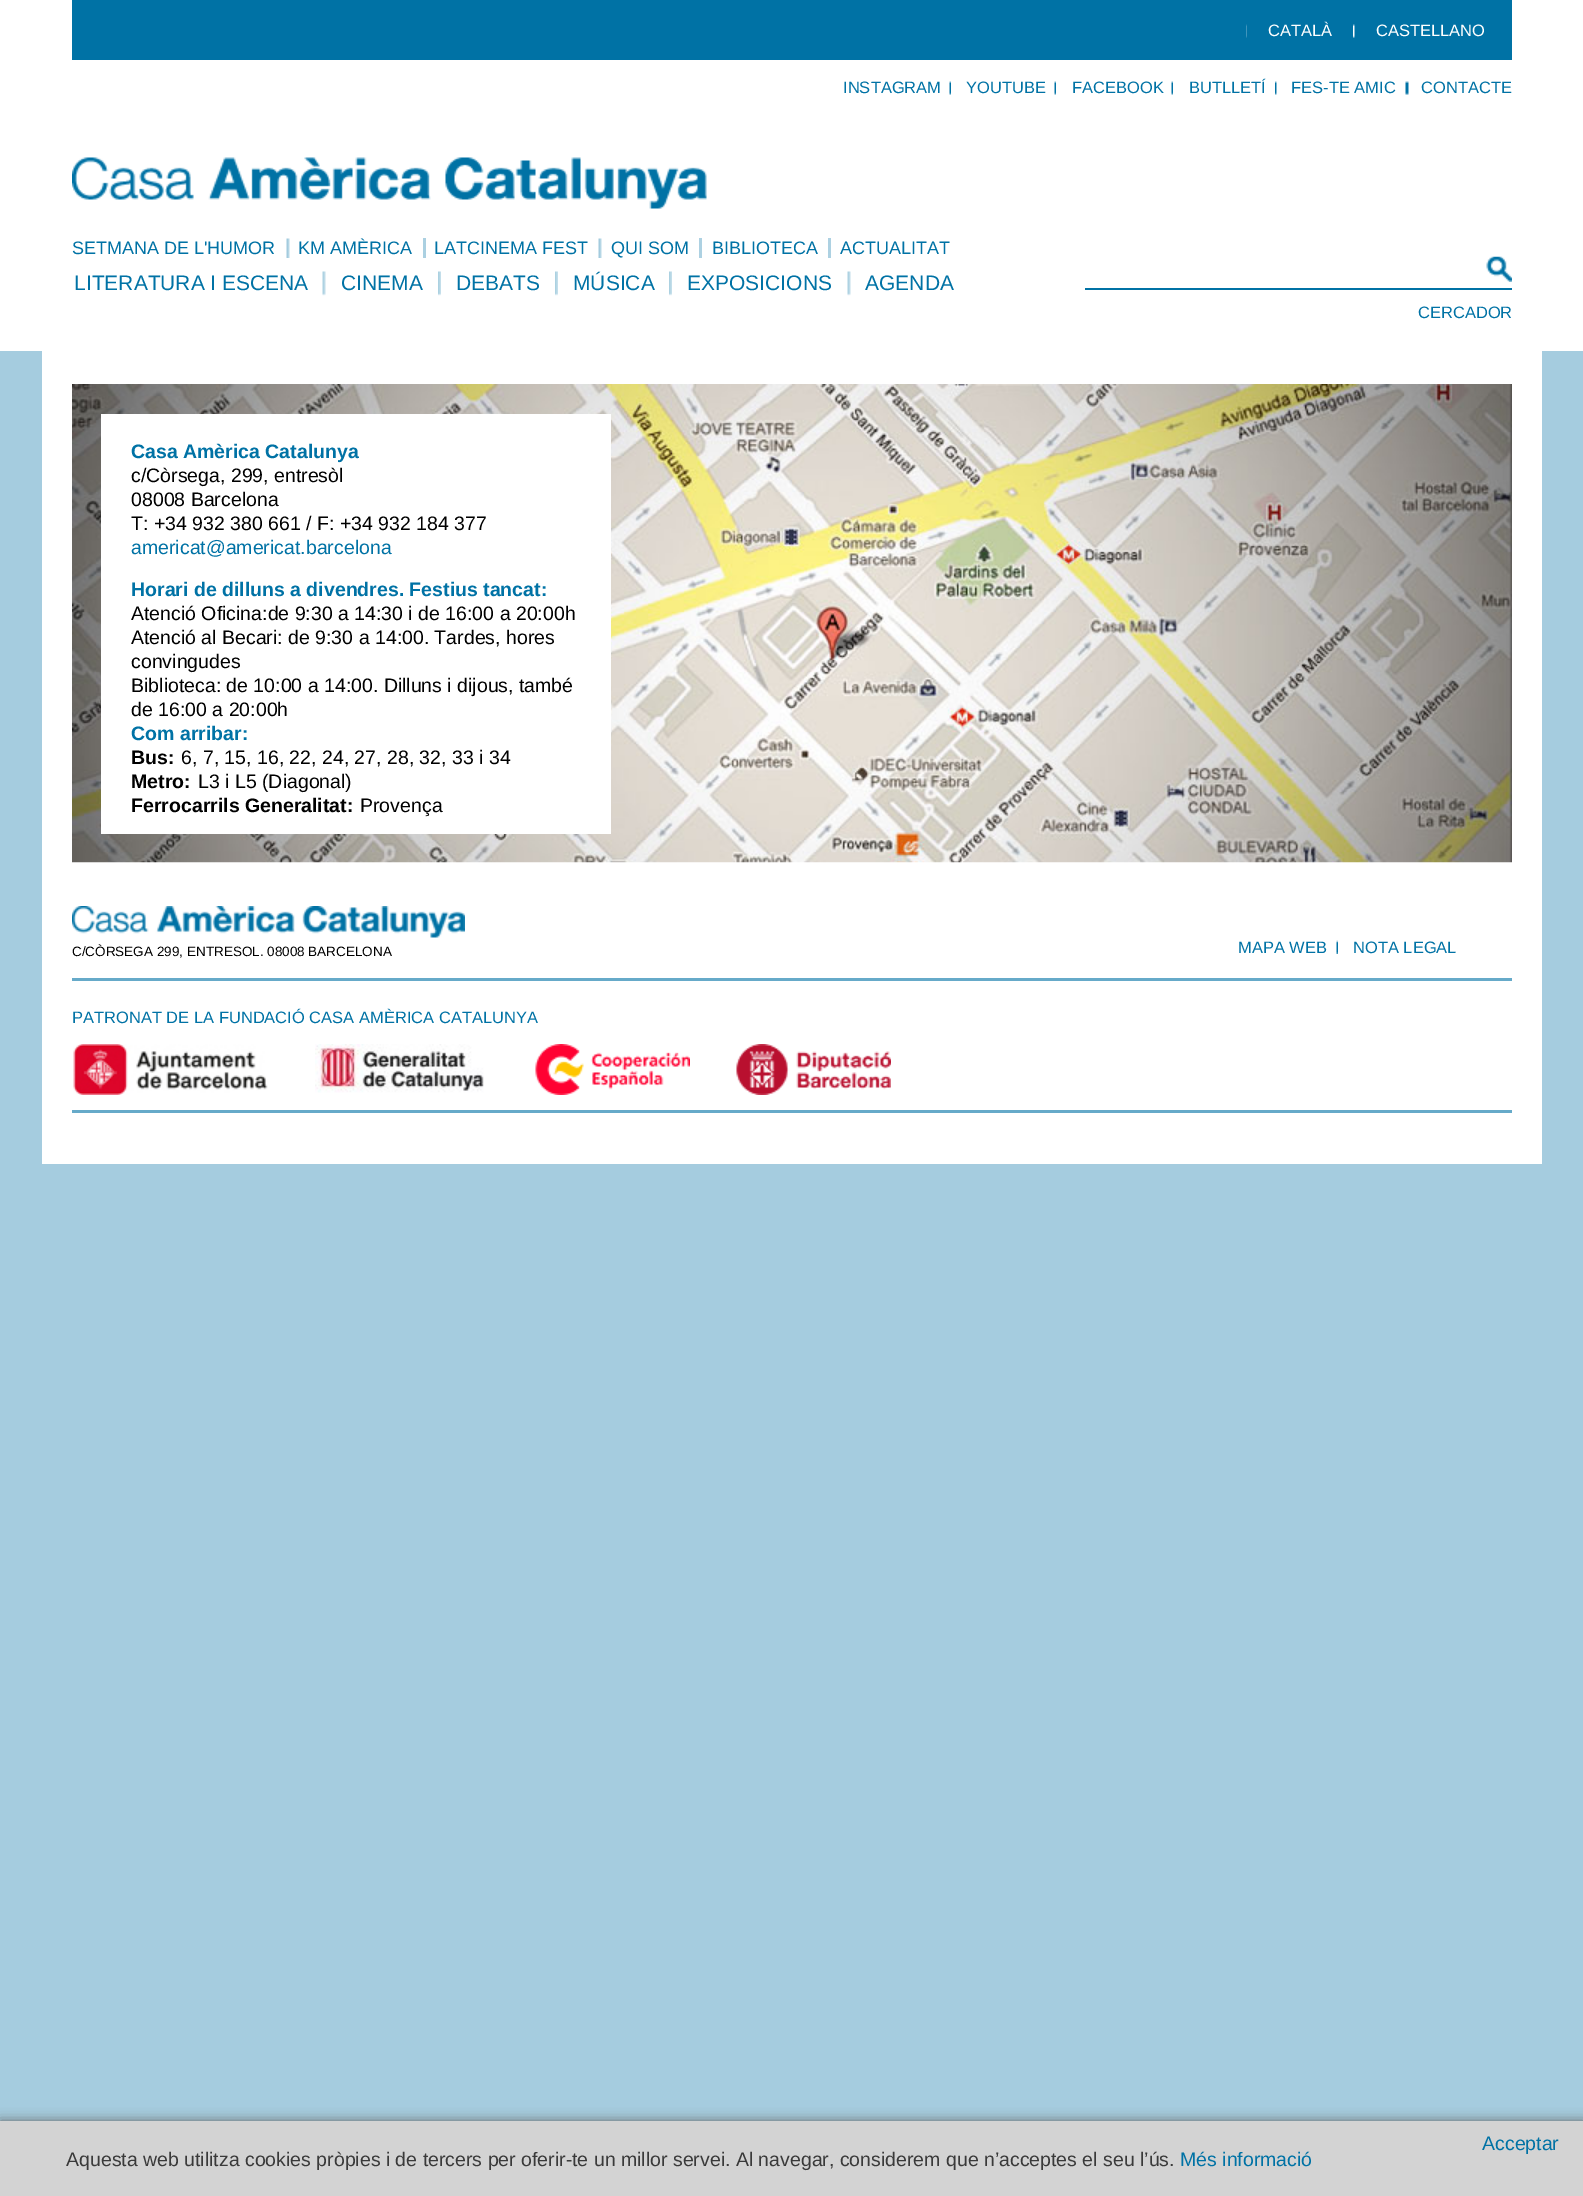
%!PS
<< /PageSize [1583 2196] /PageUsesTransparency true >> setpagedevice
/rgb { dup -16 bitshift 255 div exch dup -8 bitshift 255 and 255 div exch 255 and 255 div setrgbcolor } def
/font { [ exch dup neg 0 0 3 -1 roll 0 0 ] selectfont } def
/text { moveto show } def
/alpha { dup .setfillconstantalpha .setstrokeconstantalpha } def
/roundrect { 5 dict begin { /r /h /w /y /x } { exch def } forall
  x r add y moveto x w add y 2 copy h add r arct x w add y h add x 1 index r arct
  x y h add x y r arct x y 2 copy exch w add exch r arct closepath end } def
/shadow { 12 dict begin { /a /b /q /h /w /y /x } { exch def } forall gsave /was 0 def
  9 -2 -9 { dup b mul 4 div /e exch def 1 sub .425 mul 2.718 exch exp 1 add a .99 .min exch div /now exch def
    1 1 now sub 1 was sub div sub alpha /was now def
    w h .min e 2 mul add 0 gt { x e sub y e sub w e 2 mul add h e 2 mul add
      q e add b .6 mul add w h .min 2 div e add .min 0 .max roundrect fill } if } for grestore end } def
/picture { 5 dict begin { /h /w /y /x /name } { exch def } forall
  gsave x y translate w h scale
  w h 8 [w 0 0 h 0 0] name (r) file false 3 colorimage grestore end } def
0 .pushpdf14devicefilter
0 2196 translate 1 -1 scale
4 setmiterlimit
/s1 { /LiberationSans-Regular 16.5 font 16#FFFFFF rgb } def
/s2 { /LiberationSans-Regular 16.5 font 16#0072A5 rgb } def
/s3 { /LiberationSans-Regular 18 font 16#0072A5 rgb } def
/s4 { /LiberationSans-Regular 21 font 16#0072A5 rgb } def
/s5 { /LiberationSans-Bold 19.5 font 16#0072A5 rgb } def
/s6 { /LiberationSans-Regular 19.5 font 16#000000 rgb } def
/s7 { /LiberationSans-Regular 19.5 font 16#0072A5 rgb } def
/s8 { /LiberationSans-Bold 19.5 font 16#000000 rgb } def
/s9 { /LiberationSans-Regular 13.5 font 16#000000 rgb } def
/s10 { /LiberationSans-Regular 19.5 font 16#3A3A3A rgb } def
16#A5CCDF rgb
0 0 1583 2196 rectfill
16#FFFFFF rgb
0 0 1583 351 rectfill
16#0072A5 rgb
72 0 1440 60 rectfill
(pic1.raw) 1246 24 1 14 picture
s1
(CATALÀ) 1268 36 text
(pic2.raw) 1353 24 2 14 picture
(CASTELLANO) 1376 36 text
s2
(INSTAGRAM) 843 93 text
(pic3.raw) 949 81 2 14 picture
(YOUTUBE) 966 93 text
(pic3.raw) 1054 81 2 14 picture
(FACEBOOK) 1072 93 text
(pic3.raw) 1171 81 2 14 picture
(BUTLLETÍ) 1189 93 text
(pic4.raw) 1275 81 2 14 picture
(FES-TE AMIC) 1291 93 text
(pic5.raw) 1405 81 4 14 picture
(CONTACTE) 1421 93 text
(pic6.raw) 72 157 635 52 picture
s3
(SETMANA DE L'HUMOR) 72 254 text
(pic7.raw) 286 238 4 20 picture
(KM AMÈRICA) 298 254 text
16#ABD0E1 rgb
423 238 3 20 rectfill
s3
(LATCINEMA FEST) 434 254 text
(pic7.raw) 598 238 4 20 picture
(QUI SOM) 611 254 text
16#ADD1E2 rgb
699 238 3 20 rectfill
s3
(BIBLIOTECA) 712 254 text
16#ADD1E2 rgb
828 238 3 20 rectfill
s3
(ACTUALITAT) 840 254 text
s4
(LITERATURA I ESCENA) 74 290 text
(pic8.raw) 322 271 4 25 picture
(CINEMA) 341 290 text
(pic9.raw) 438 271 3 25 picture
(DEBATS) 456 290 text
(pic10.raw) 555 271 3 25 picture
(MÚSICA) 573 290 text
(pic10.raw) 669 271 3 25 picture
(EXPOSICIONS) 687 290 text
(pic8.raw) 847 271 4 25 picture
(AGENDA) 865 290 text
1085 288 427 2 rectfill
(pic11.raw) 1486 256 26 26 picture
s2
(CERCADOR) 1418 318 text
16#FFFFFF rgb
42 351 1500 813 rectfill
(pic12.raw) 72 384 1440 479 picture
101 414 510 420 rectfill
s5
(Casa Amèrica Catalunya) 131 458 text
s6
(c/Còrsega, 299, entresòl) 131 482 text
(08008 Barcelona) 131 506 text
(T: +34 932 380 661 / F: +34 932 184 377) 131 530 text
s7
(americat@americat.barcelona) 131 554 text
s5
(Horari de dilluns a divendres. Festius tancat:) 131 596 text
s6
(Atenció Oficina:de 9:30 a 14:30 i de 16:00 a 20:00h) 131 620 text
(Atenció al Becari: de 9:30 a 14:00. Tardes, hores) 131 644 text
(convingudes) 131 668 text
(Biblioteca: de 10:00 a 14:00. Dilluns i dijous, també) 131 692 text
(de 16:00 a 20:00h) 131 716 text
s5
(Com arribar:) 131 740 text
s8
(Bus:) 131 764 text
s6
(6, 7, 15, 16, 22, 24, 27, 28, 32, 33 i 34) 181 764 text
s8
(Metro:) 131 788 text
s6
(L3 i L5 \(Diagonal\)) 198 788 text
s8
(Ferrocarrils Generalitat:) 131 812 text
s6
(Provença) 360 812 text
16#66AAC9 rgb
72 978 1440 3 rectfill
(pic13.raw) 72 906 393 32 picture
s9
(C/CÒRSEGA 299, ENTRESOL. 08008 BARCELONA) 72 956 text
s2
(MAPA WEB) 1238 953 text
(pic14.raw) 1336 940 2 14 picture
(NOTA LEGAL) 1353 953 text
16#66AAC9 rgb
72 1110 1440 3 rectfill
s2
(PATRONAT DE LA FUNDACIÓ CASA AMÈRICA CATALUNYA) 72 1023 text
(pic15.raw) 73 1044 195 51 picture
(pic16.raw) 315 1044 169 49 picture
(pic17.raw) 535 1044 155 51 picture
(pic18.raw) 736 1044 155 51 picture
16#666666 rgb
0 2121 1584 75 0 6 1 shadow
16#D3D3D3 rgb
0 2121 1583 75 rectfill
s7
(Acceptar) 1482 2150 text
s10
(Aquesta web utilitza cookies pròpies i de tercers per oferir-te un millor servei. Al navegar, considerem que n’acceptes el seu l’ús.) 66 2166 text
s7
(Més informació) 1180 2166 text
.poppdf14devicefilter showpage
